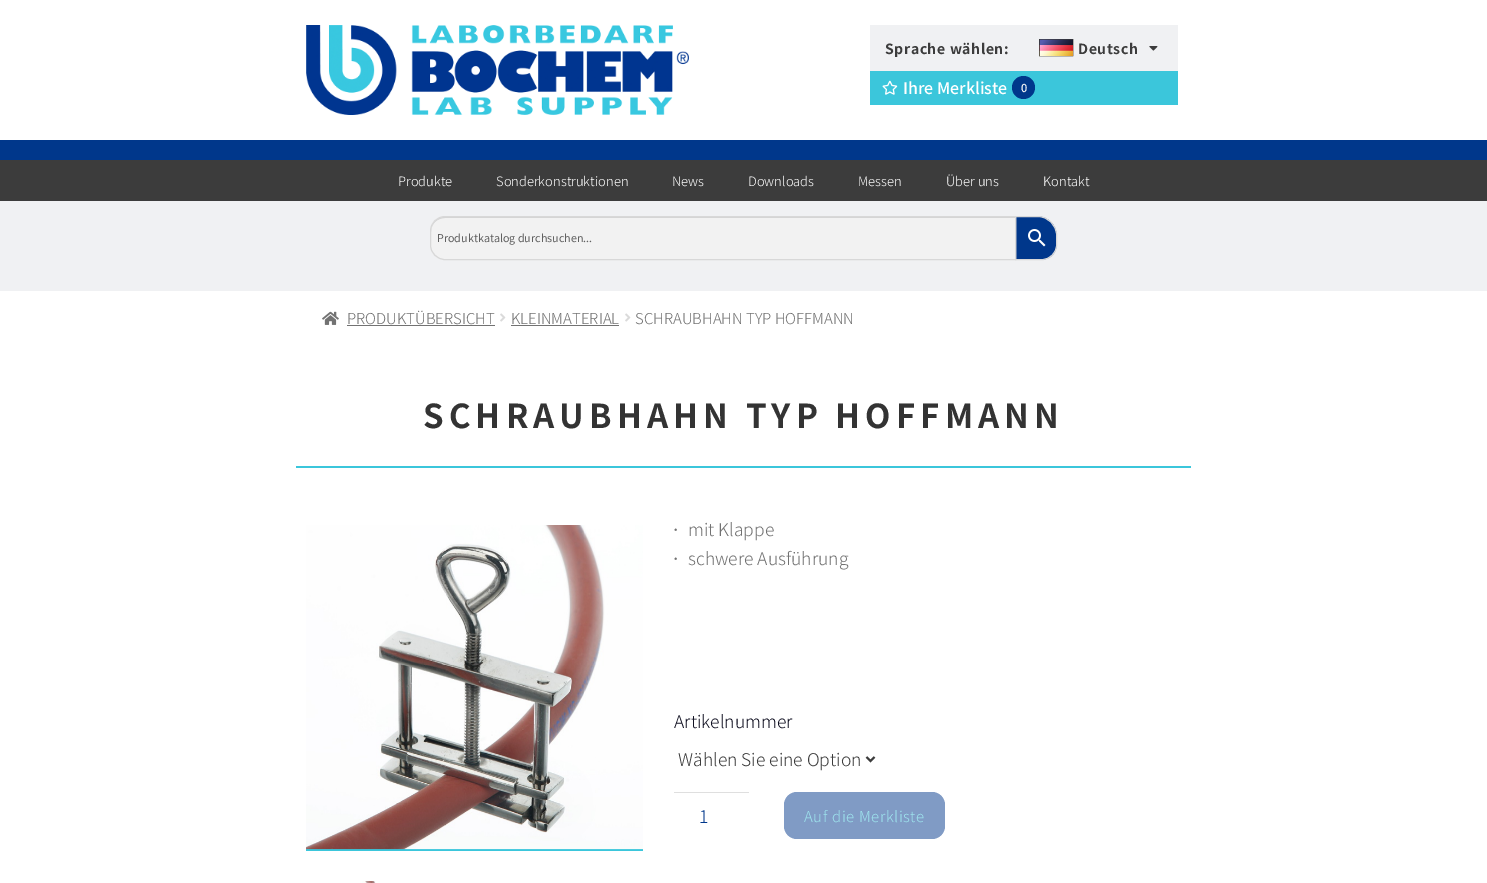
%!PS
<< /PageSize [1487 883] >> setpagedevice
/rgb { dup -16 bitshift 255 div exch dup -8 bitshift 255 and 255 div exch 255 and 255 div setrgbcolor } def
/font { [ exch dup neg 0 0 3 -1 roll 0 0 ] selectfont } def
/text { moveto show } def
/circle { newpath 0 360 arc closepath } def
/roundrect { 5 dict begin { /r /h /w /y /x } { exch def } forall
  x r add y moveto x w add y 2 copy h add r arct x w add y h add x 1 index r arct
  x y h add x y r arct x y 2 copy exch w add exch r arct closepath end } def
/picture { 5 dict begin { /h /w /y /x /name } { exch def } forall
  gsave x y translate w h scale
  w h 8 [w 0 0 h 0 0] name (r) file false 3 colorimage grestore end } def
0 883 translate 1 -1 scale
4 setmiterlimit
/s1 { /NotoSansSC-Medium 16 font 16#FFFFFF rgb } def
/s2 { /NotoSansSC-Medium 11 font 16#F3F4F5 rgb } def
/s3 { /NotoSansSC-Light 13 font 16#FFFFFF rgb } def
/s4 { /SourceSansPro-Regular 12 font 16#616161 rgb } def
/s5 { /NotoSansSC-Light 15 font 16#727272 rgb } def
/s6 { /LiberationSerif-Regular 10 font 16#727272 rgb } def
/s7 { /NotoSansSC-Light 17.5 font 16#727272 rgb } def
/s8 { /NotoSansSC-Light 17.5 font 16#111122 rgb } def
/s9 { /NotoSansSC-Light 17.5 font 16#3C3C3C rgb } def
/s10 { /NotoSansSC-Light 17.5 font 16#00378B rgb } def
16#FFFFFF rgb
0 0 1487 883 rectfill
16#00378B rgb
0 140 1487 20 rectfill
(pic1.raw) 306 25 383 90 picture
16#F0F1F3 rgb
870 25 308 46 rectfill
/NotoSansSC-Bold 14 font
16#3C3C3C rgb
885 54 moveto 0.6 0 (Sprache wählen:) ashow
(pic2.raw) 1039 39 35 18 picture
1078 54 moveto 0.6 0 (Deutsch) ashow
(pic3.raw) 1149 46 9 5 picture
16#3BC6DB rgb
870 71 308 34 rectfill
(pic4.raw) 882 80 16 15 picture
s1
(Ihre Merkliste) 903 94 text
16#00378B rgb
1023.5 87.5 11.5 circle fill
s2
(0) 1021 92 text
16#3C3C3C rgb
0 160 1487 41 rectfill
s3
(Produkte) 398 186 text
(Sonderkonstruktionen) 496 186 text
(News) 672 186 text
(Downloads) 748 186 text
(Messen) 858 186 text
(Über uns) 946 186 text
(Kontakt) 1043 186 text
16#F0F1F3 rgb
0 201 1487 90 rectfill
16#00378B rgb
1015.5 216.5 moveto 1038 216.5 lineto 1048 216.5 1056.5 225 1056.5 235 curveto 1056.5 245 lineto 1056.5 253 1050 259.5 1042 259.5 curveto 1015.5 259.5 lineto closepath gsave fill grestore
16#D8D8D8 rgb
stroke
16#F2F2F2 rgb
445 216 moveto 1016 216 lineto 1016 260 lineto 445 260 lineto 436.5 260 430 253.5 430 245 curveto 430 231 lineto 430 222.5 436.5 216 445 216 curveto closepath fill
16#D4D4D4 rgb
445 218 moveto 437 218 431 224 431 232 curveto 431 224 437 217 445 217 curveto 1015 217 lineto 1015 218 lineto closepath fill
16#D8D8D8 rgb
445 216.5 moveto 1015.5 216.5 lineto 1015.5 259.5 lineto 445 259.5 lineto 437 259.5 430.5 253 430.5 245 curveto 430.5 231 lineto 430.5 223 437 216.5 445 216.5 curveto closepath stroke
s4
(Produktkatalog durchsuchen...) 437 242 text
(pic5.raw) 1028 229 18 18 picture
(pic6.raw) 322 311 17 14 picture
s5
(PRODUKTÜBERSICHT) 347 324 text
347 325 148 1 rectfill
(pic7.raw) 500 313 6 9 picture
(KLEINMATERIAL) 511 324 text
511 325 108 1 rectfill
(pic7.raw) 625 313 6 9 picture
(SCHRAUBHAHN TYP HOFFMANN) 635 324 text
/NotoSansSC-Bold 33 font
16#333333 rgb
423 428 moveto 5.1 0 (SCHRAUBHAHN TYP HOFFMANN) ashow
16#3BC6DB rgb
296 466 895 2 rectfill
306 849 337 2 rectfill
(pic8.raw) 306 525 337 325 picture
(pic9.raw) 362 881 14 2 picture
s6
(•) 674 533 text
s7
(mit Klappe) 688 536 text
s6
(•) 674 562 text
s7
(schwere Ausführung) 688 565 text
s8
(Artikelnummer) 674 728 text
16#3C3C3C rgb
2 setlinewidth
866.5 757 moveto 870.5 761 lineto 874.5 757 lineto stroke
(Wählen Sie eine Option) 678 766 text
16#DFDFDF rgb
674 792 75 1 rectfill
s10
(1) 699 823 text
16#809BC5 rgb
784 792 161 47 13 roundrect fill
/NotoSansSC-Light 15 font
16#9DE3ED rgb
804 822 moveto 0.6 0 (Auf die Merkliste) ashow
showpage
